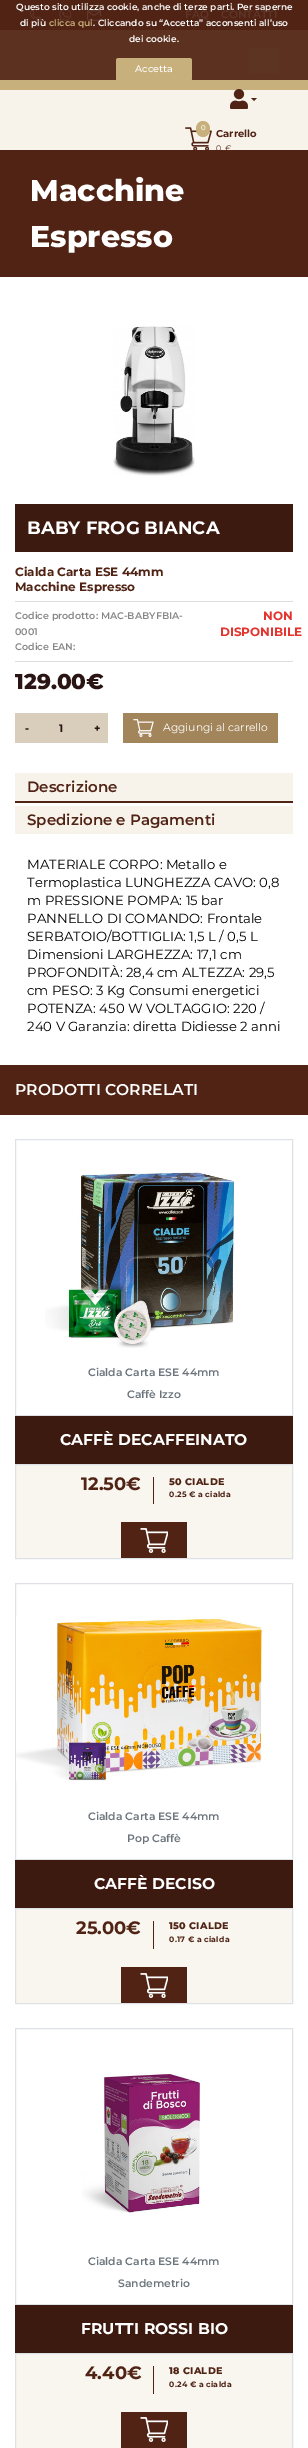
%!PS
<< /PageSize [308 2448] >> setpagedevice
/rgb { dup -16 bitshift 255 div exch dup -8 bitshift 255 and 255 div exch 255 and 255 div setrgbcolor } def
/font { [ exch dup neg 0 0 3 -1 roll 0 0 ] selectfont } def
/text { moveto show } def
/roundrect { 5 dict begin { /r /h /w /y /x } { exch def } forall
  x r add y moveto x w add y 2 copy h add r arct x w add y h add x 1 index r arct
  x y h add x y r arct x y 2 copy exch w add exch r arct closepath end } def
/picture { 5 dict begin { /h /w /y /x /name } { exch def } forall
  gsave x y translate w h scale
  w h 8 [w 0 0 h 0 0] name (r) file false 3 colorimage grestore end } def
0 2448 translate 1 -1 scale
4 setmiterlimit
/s1 { /Montserrat-SemiBold 9 font 16#FFFFFF rgb } def
/s2 { /Montserrat-SemiBold 9 font 16#C7B07B rgb } def
/s3 { /Montserrat-Medium 9.6 font 16#FFFFFF rgb } def
/s4 { /Montserrat-SemiBold 10.75 font 16#5E3528 rgb } def
/s5 { /Montserrat-Medium 7 font 16#FFFFFF rgb } def
/s6 { /Montserrat-Bold 10 font 16#502315 rgb } def
/s7 { /Montserrat-ExtraBold 30 font 16#FFFFFF rgb } def
/s8 { /Montserrat-Bold 18 font 16#FFFFFF rgb } def
/s9 { /Montserrat-Bold 12 font 16#502315 rgb } def
/s10 { /Montserrat-SemiBold 9.6 font 16#888787 rgb } def
/s11 { /Montserrat-Bold 12 font 16#E3342F rgb } def
/s12 { /Montserrat-ExtraBold 21.5 font 16#2A1414 rgb } def
/s13 { /Montserrat-Bold 10.75 font 16#2A1414 rgb } def
/s14 { /Montserrat-Regular 10.75 font 16#FFFFFF rgb } def
/s15 { /Montserrat-SemiBold 15 font 16#502315 rgb } def
/s16 { /Montserrat-Regular 13.25 font 16#000000 rgb } def
/s17 { /Montserrat-SemiBold 15.6 font 16#FFFFFF rgb } def
/s18 { /Montserrat-SemiBold 10.75 font 16#6C757D rgb } def
/s19 { /Montserrat-Bold 15.6 font 16#FFFFFF rgb } def
/s20 { /Montserrat-Bold 18 font 16#502315 rgb } def
16#FFFFFF rgb
0 0 308 2448 rectfill
16#502315 rgb
0 0 308 30 rectfill
(pic1.raw) 30 10 11 11 picture
(pic2.raw) 59 8 13 13 picture
(pic3.raw) 87 10 14 11 picture
s1
(Questo sito utilizza cookie, anche di terze parti. Per saperne) 16 10 text
(di più) 20 26 text
s2
(clicca qui) 49 26 text
s1
(. Cliccando su “Accetta” acconsenti all’uso) 93 26 text
16#5C311F rgb
0 30 308 50 rectfill
s1
(dei cookie.) 129 42 text
16#C7B07B rgb
0 80 308 10 rectfill
116 58 76 23 2.5 roundrect fill
s3
(Accetta) 135 72 text
s4
(FAQ) 185 18 text
(CONTATTI) 221 18 text
16#5D3322 rgb
250 48 28 25 rectfill
(pic4.raw) 259 55 10 10 picture
16#F7F3EB rgb
0 90 308 60 rectfill
(pic5.raw) 230 89 18 20 picture
16#502315 rgb
251 98 moveto 257 98 lineto 254 101 lineto closepath fill
(pic6.raw) 185 127 27 23 picture
16#C7B07B rgb
203 121 moveto 207 121 210 124.5 210 129 curveto 210 133.5 207 137 203 137 curveto 199 137 196 133.5 196 129 curveto 196 124.5 199 121 203 121 curveto closepath fill
s5
(0) 201 130 text
s6
(Carrello) 216 137 text
0 150 308 127 rectfill
/Montserrat-Regular 8 font
216 151 moveto 1 0 (0 €) ashow
s7
(Macchine) 30 201 text
(Espresso) 30 247 text
(pic7.raw) 113 326 82 150 picture
16#3C1A10 rgb
15 504 278 48 rectfill
s8
(BABY FROG BIANCA) 27 534 text
16#DEDEDE rgb
15 601 278 1 rectfill
s9
(Cialda Carta ESE 44mm) 15 576 text
(Macchine Espresso) 15 591 text
16#DEDEDE rgb
15 661 278 1 rectfill
s10
(Codice prodotto: MAC-BABYFBIA-) 15 619 text
(0001) 15 635 text
(Codice EAN:) 15 650 text
s11
(NON) 263 620 text
(DISPONIBILE) 220 636 text
s12
(129.00€) 15 689 text
16#D9CDBC rgb
15 713 93 30 rectfill
s13
(-) 25 732 text
(1) 59 732 text
(+) 94 732 text
16#A3855C rgb
123 713 155 30 rectfill
(pic8.raw) 133 719 21 18 picture
s14
(Aggiungi al carrello) 163 731 text
16#F7F3EB rgb
15 773 278 28 rectfill
16#502315 rgb
15 801 278 2 rectfill
s15
(Descrizione) 27 792 text
16#F7F3EB rgb
15 806 278 28 rectfill
s15
(Spedizione e Pagamenti) 27 825 text
s16
(MATERIALE CORPO: Metallo e) 27 869 text
(Termoplastica LUNGHEZZA CAVO: 0,8) 27 887 text
(m PRESSIONE POMPA: 15 bar) 27 905 text
(PANNELLO DI COMANDO: Frontale) 27 923 text
(SERBATOIO/BOTTIGLIA: 1,5 L / 0,5 L) 27 941 text
(Dimensioni LARGHEZZA: 17,1 cm) 27 959 text
(PROFONDITÀ: 28,4 cm ALTEZZA: 29,5) 27 977 text
(cm PESO: 3 Kg Consumi energetici) 27 995 text
(POTENZA: 450 W VOLTAGGIO: 220 /) 27 1013 text
(240 V Garanzia: diretta Didiesse 2 anni) 27 1031 text
16#502315 rgb
0 1065 308 50 rectfill
s17
(PRODOTTI CORRELATI) 15 1095 text
16#DEE2E6 rgb
15.5 1139.5 277 276 rectstroke
(pic9.raw) 45 1172 190 176 picture
s18
(Cialda Carta ESE 44mm) 88 1376 text
(Caffè Izzo) 127 1398 text
16#3C1A10 rgb
15 1416 278 48 rectfill
s19
(CAFFÈ DECAFFEINATO) 60 1445 text
16#F9F6F0 rgb
15.5 1464.5 moveto 292.5 1464.5 lineto 292.5 1558.5 lineto 15.5 1558.5 lineto closepath gsave fill grestore
16#DEE2E6 rgb
stroke
16#502315 rgb
153 1477 1 27 rectfill
s20
(12.50€) 81 1490 text
/Montserrat-ExtraBold 9.6 font
169 1485 moveto 0.25 0 (50 CIALDE) ashow
/Montserrat-Bold 7.75 font
169 1497 moveto 0.25 0 (0.25 € a cialda) ashow
121 1522 66 36 rectfill
(pic10.raw) 140 1528 28 25 picture
16#DEE2E6 rgb
15.5 1583.5 277 276 rectstroke
(pic11.raw) 16 1617 247 164 picture
s18
(Cialda Carta ESE 44mm) 88 1820 text
(Pop Caffè) 127 1842 text
16#3C1A10 rgb
15 1860 278 48 rectfill
s19
(CAFFÈ DECISO) 94 1889 text
16#F9F6F0 rgb
15.5 1908.5 moveto 292.5 1908.5 lineto 292.5 2003.5 lineto 15.5 2003.5 lineto closepath gsave fill grestore
16#DEE2E6 rgb
stroke
16#502315 rgb
153 1921 1 28 rectfill
s20
(25.00€) 76 1934 text
/Montserrat-ExtraBold 9.6 font
169 1929 moveto 0.25 0 (150 CIALDE) ashow
/Montserrat-Bold 7.75 font
169 1942 moveto 0.25 0 (0.17 € a cialda) ashow
121 1967 66 36 rectfill
(pic10.raw) 140 1973 28 25 picture
16#DEE2E6 rgb
15.5 2028.5 277 276 rectstroke
(pic12.raw) 82 2074 118 139 picture
s18
(Cialda Carta ESE 44mm) 88 2265 text
(Sandemetrio) 118 2287 text
16#3C1A10 rgb
15 2305 278 48 rectfill
s19
(FRUTTI ROSSI BIO) 81 2334 text
16#F9F6F0 rgb
15.5 2353.5 moveto 292.5 2353.5 lineto 292.5 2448.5 lineto 15.5 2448.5 lineto closepath gsave fill grestore
16#DEE2E6 rgb
stroke
16#502315 rgb
153 2366 1 28 rectfill
s20
(4.40€) 85 2379 text
/Montserrat-ExtraBold 9.6 font
169 2374 moveto 0.25 0 (18 CIALDE) ashow
/Montserrat-Bold 7.75 font
169 2387 moveto 0.25 0 (0.24 € a cialda) ashow
121 2412 66 36 rectfill
(pic10.raw) 140 2417 28 25 picture
showpage
